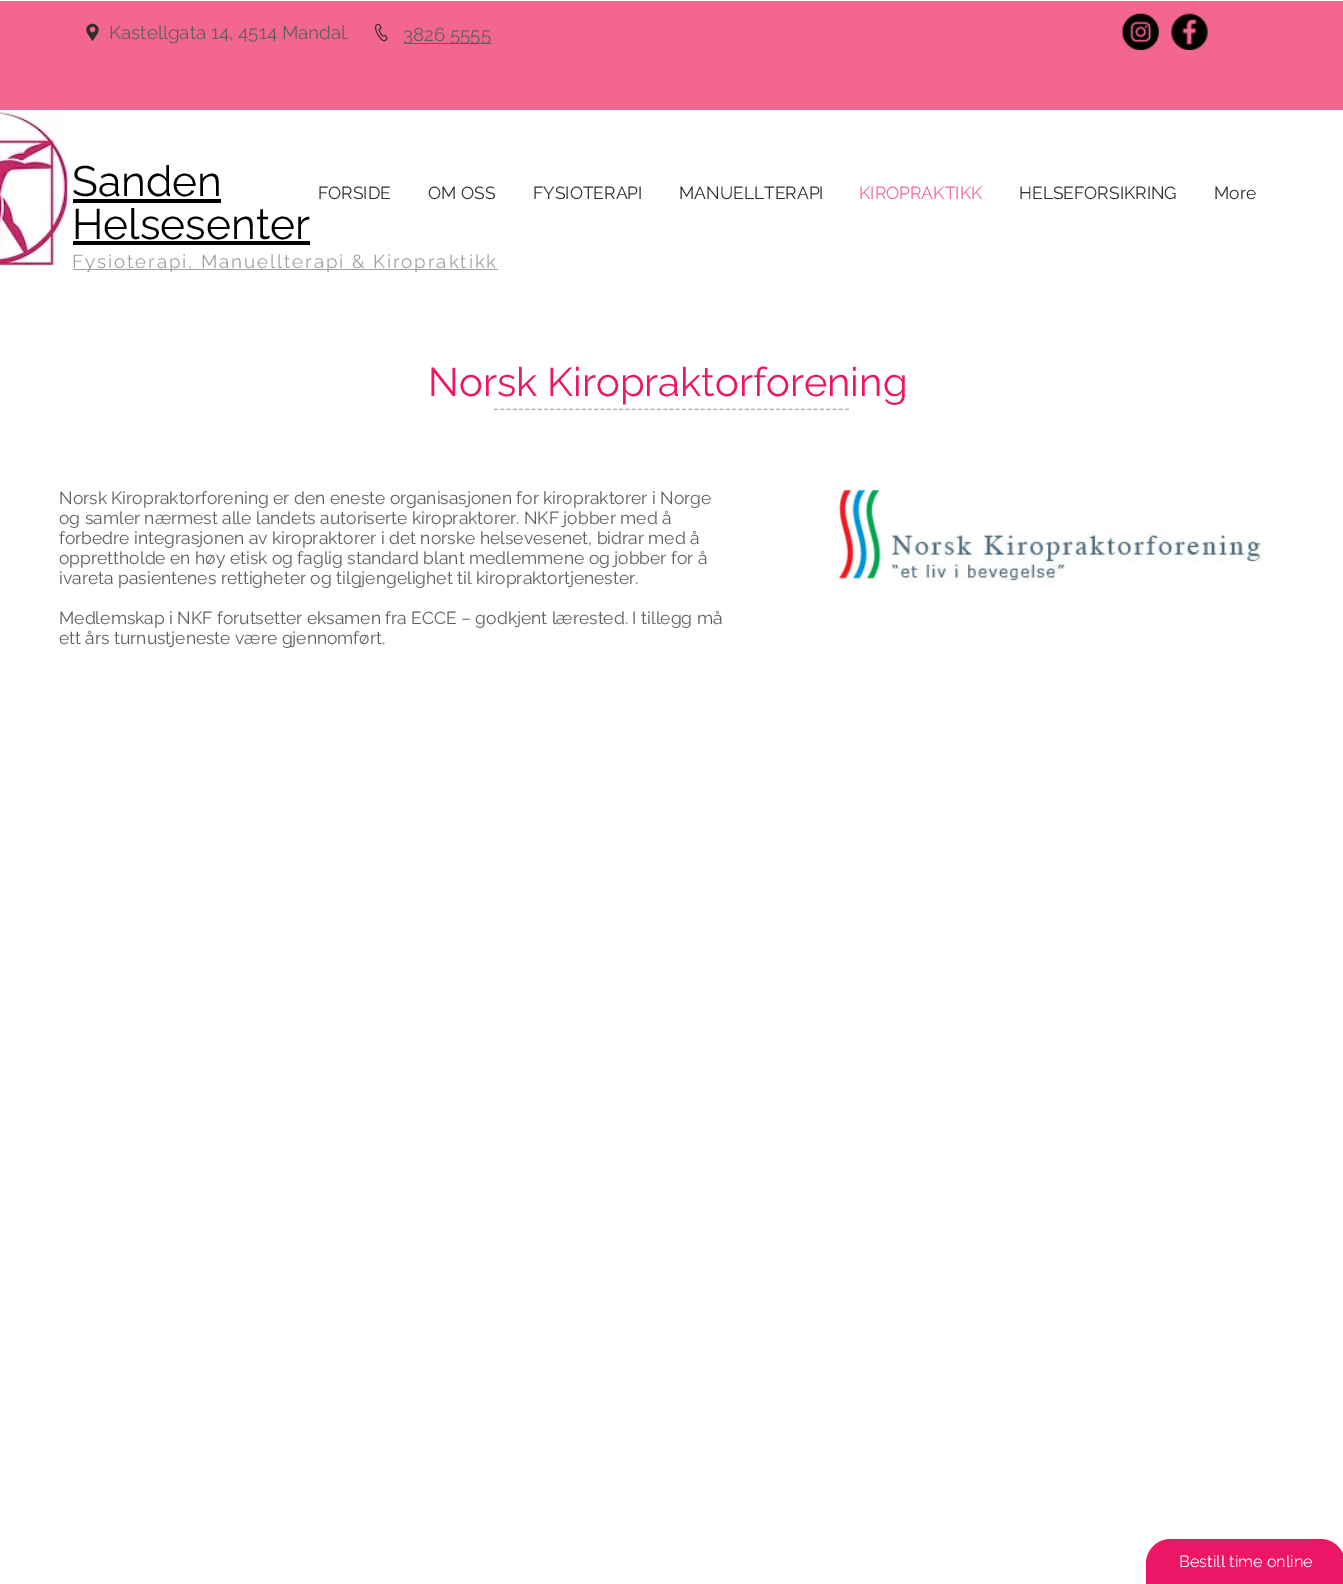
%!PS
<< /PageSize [1343 1584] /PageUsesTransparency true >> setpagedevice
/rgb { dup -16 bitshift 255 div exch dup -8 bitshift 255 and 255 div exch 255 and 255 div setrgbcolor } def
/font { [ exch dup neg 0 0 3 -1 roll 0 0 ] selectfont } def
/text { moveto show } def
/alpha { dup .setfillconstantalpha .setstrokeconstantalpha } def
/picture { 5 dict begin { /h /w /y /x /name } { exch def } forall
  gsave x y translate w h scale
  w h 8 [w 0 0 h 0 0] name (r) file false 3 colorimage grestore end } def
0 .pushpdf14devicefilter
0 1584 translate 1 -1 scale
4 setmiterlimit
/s1 { /Raleway-Regular 18.75 font 16#605E5E rgb } def
/s2 { /Raleway-Regular 42.5 font 16#000000 rgb } def
/s3 { /Raleway-Regular 17.5 font 16#2F2E2E rgb } def
/s4 { /Raleway-Regular 17.5 font 16#F2668F rgb } def
/s5 { /Raleway-Regular 40 font 16#ED1566 rgb } def
/s6 { /Raleway-Regular 17.5 font 16#605E5E rgb } def
/s7 { /Raleway-Regular 16.25 font 16#FFFFFF rgb } def
16#FFFFFF rgb
0 0 1343 1584 rectfill
16#F2668F rgb
0 1 1343 109 rectfill
(pic1.raw) 86 23 13 19 picture
s1
(Kastellgata 14, 4514 Mandal.) 109 39 text
(pic2.raw) 375 23 13 19 picture
404 43 87 1 rectfill
(3826 5555) 403 41 text
(pic3.raw) 1122 13 37 37 picture
(pic4.raw) 1171 13 37 37 picture
(pic5.raw) 0 110 68 157 picture
s2
(Sanden) 72 196 text
73 199 148 4 rectfill
(Helsesenter) 72 239 text
73 241 237 4 rectfill
s3
(FORSIDE) 318 199 text
(OM OSS) 428 199 text
(FYSIOTERAPI) 533 199 text
(MANUELLTERAPI) 679 199 text
s4
(KIROPRAKTIKK) 859 199 text
s3
(HELSEFORSIKRING) 1019 199 text
(More) 1214 199 text
16#A0A09F rgb
73 269 425 1 rectfill
/Raleway-Regular 18.75 font
72 268 moveto 1.9 0 (Fysioterapi, Manuellterapi & Kiropraktikk) ashow
s5
(Norsk Kiropraktorforening) 428 396 text
16#A6A6A6 rgb
1.2 setlinewidth
[3.75 2.52] 0 setdash
494 409.5 moveto 849 409.5 lineto stroke
0.5 alpha
16#FFFFFF rgb
494 410.5 moveto 849 410.5 lineto stroke
1 alpha
s6
(Norsk Kiropraktorforening er den eneste organisasjonen for kiropraktorer i Norge) 59 504 text
(og samler nærmest alle landets autoriserte kiropraktorer. NKF jobber med å) 59 524 text
(forbedre integrasjonen av kiropraktorer i det norske helsevesenet, bidrar med å) 59 544 text
(opprettholde en høy etisk og faglig standard blant medlemmene og jobber for å) 59 564 text
(ivareta pasientenes rettigheter og tilgjengelighet til kiropraktortjenester.) 59 584 text
(Medlemskap i NKF forutsetter eksamen fra ECCE – godkjent lærested. I tillegg må) 59 624 text
(ett års turnustjeneste være gjennomført.) 59 644 text
(pic6.raw) 838 489 429 94 picture
16#ED1566 rgb
1171 1539 moveto 1320 1539 lineto 1334 1539 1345 1550 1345 1564 curveto 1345 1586 lineto 1146 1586 lineto 1146 1564 lineto 1146 1550 1157 1539 1171 1539 curveto closepath fill
s7
(Bestill time online) 1179 1567 text
.poppdf14devicefilter showpage
